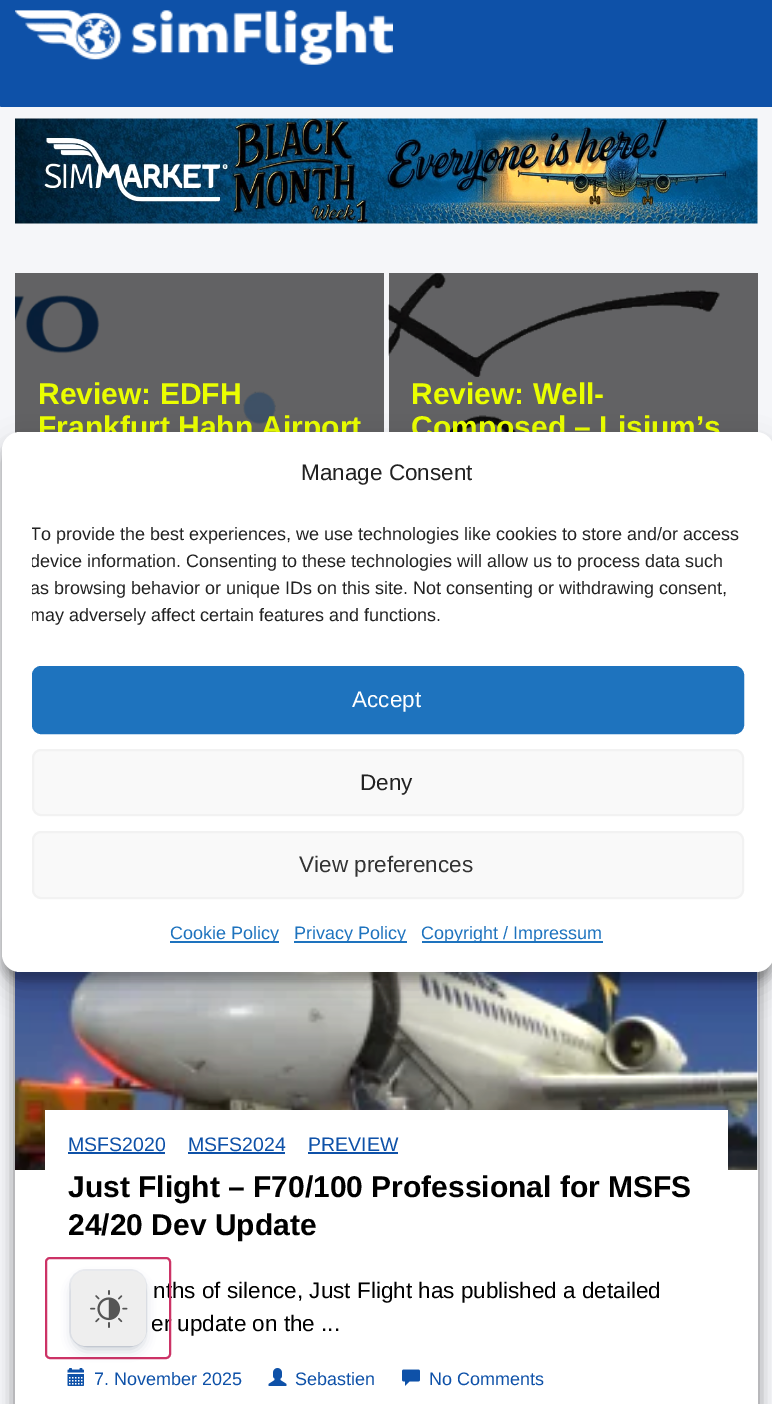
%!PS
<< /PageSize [772 1404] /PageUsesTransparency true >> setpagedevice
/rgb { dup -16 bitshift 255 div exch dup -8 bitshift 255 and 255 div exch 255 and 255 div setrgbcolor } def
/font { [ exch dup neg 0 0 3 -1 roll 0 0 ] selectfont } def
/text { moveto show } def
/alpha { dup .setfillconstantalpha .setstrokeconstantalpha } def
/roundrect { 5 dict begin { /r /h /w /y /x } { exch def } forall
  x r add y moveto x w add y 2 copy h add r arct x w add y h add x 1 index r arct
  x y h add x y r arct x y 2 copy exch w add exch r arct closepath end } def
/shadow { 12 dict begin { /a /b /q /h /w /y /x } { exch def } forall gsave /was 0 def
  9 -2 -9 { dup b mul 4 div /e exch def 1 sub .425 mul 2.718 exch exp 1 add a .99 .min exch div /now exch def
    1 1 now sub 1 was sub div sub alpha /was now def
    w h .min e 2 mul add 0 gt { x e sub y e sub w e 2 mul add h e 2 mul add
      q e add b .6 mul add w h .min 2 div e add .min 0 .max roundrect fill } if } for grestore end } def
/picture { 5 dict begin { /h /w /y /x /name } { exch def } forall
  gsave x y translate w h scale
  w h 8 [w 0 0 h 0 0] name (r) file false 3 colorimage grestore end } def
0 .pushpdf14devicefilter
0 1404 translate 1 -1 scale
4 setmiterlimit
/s1 { /LiberationSans-Bold 30 font 16#EAFF00 rgb } def
/s2 { /LiberationSans-Regular 19.5 font 16#0E51A8 rgb } def
/s3 { /LiberationSans-Bold 30 font 16#000000 rgb } def
/s4 { /LiberationSans-Regular 22.5 font 16#000000 rgb } def
/s5 { /LiberationSans-Regular 18 font 16#0E51A8 rgb } def
/s6 { /LiberationSans-Regular 22.5 font 16#222222 rgb } def
/s7 { /LiberationSans-Regular 18 font 16#222222 rgb } def
/s8 { /LiberationSans-Regular 22.5 font 16#FFFFFF rgb } def
/s9 { /LiberationSans-Regular 22.5 font 16#333333 rgb } def
/s10 { /LiberationSans-Regular 18 font 16#1E73BE rgb } def
16#F5F6F9 rgb
0 0 772 1404 rectfill
16#626264 rgb
389 273 369 160 rectfill
15 273 369 160 rectfill
16#0E51A8 rgb
0 -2 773 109 1.5 roundrect fill
(pic1.raw) 15 10 378 55 picture
(pic2.raw) 15 118 743 106 picture
(pic3.raw) 15 295 261 130 picture
s1
(Review: EDFH) 38 404 text
(Frankfurt Hahn Airport) 38 437 text
(pic4.raw) 388 273 332 159 picture
(Review: Well-) 411 404 text
(Composed – Lisium’s) 411 437 text
16#000000 rgb
15 908 743 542 23 7.5 0.5 shadow
16#FFFFFF rgb
15 971 743 433 rectfill
(pic5.raw) 15 971 743 199 picture
45 1110 683 60 rectfill
s2
(MSFS2020) 68 1151 text
68 1152 97 2 rectfill
(MSFS2024) 188 1151 text
188 1152 97 2 rectfill
(PREVIEW) 308 1151 text
308 1152 90 2 rectfill
s3
(Just Flight – F70/100 Professional for MSFS) 68 1197 text
(24/20 Dev Update) 68 1235 text
s4
(nths of silence, Just Flight has published a detailed) 153 1298 text
(er update on the ...) 151 1331 text
(pic6.raw) 67 1368 17 18 picture
s5
(7. November 2025) 94 1385 text
(pic7.raw) 268 1368 19 18 picture
(Sebastien) 295 1385 text
(pic8.raw) 402 1369 18 17 picture
(No Comments) 429 1385 text
gsave
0 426 moveto 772 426 lineto 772 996 lineto 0 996 lineto closepath 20 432 moveto 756 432 lineto 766 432 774 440 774 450 curveto 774 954 lineto 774 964 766 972 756 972 curveto 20 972 lineto 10 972 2 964 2 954 curveto 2 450 lineto 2 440 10 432 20 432 curveto closepath eoclip newpath
16#000000 rgb
2 441 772 540 18 4.5 0.23 shadow
grestore
gsave
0 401 moveto 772 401 lineto 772 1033 lineto 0 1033 lineto closepath 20 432 moveto 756 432 lineto 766 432 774 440 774 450 curveto 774 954 lineto 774 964 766 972 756 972 curveto 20 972 lineto 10 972 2 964 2 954 curveto 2 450 lineto 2 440 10 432 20 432 curveto closepath eoclip newpath
16#000000 rgb
2 447 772 540 18 15 0.19 shadow
grestore
16#FFFFFF rgb
2 432 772 540 18 roundrect fill
s6
(Manage Consent) 301 480 text
gsave
32 521 712 115 rectclip
s7
(To provide the best experiences, we use technologies like cookies to store and/or access) 30 540 text
(device information. Consenting to these technologies will allow us to process data such) 30 567 text
(as browsing behavior or unique IDs on this site. Not consenting or withdrawing consent,) 30 594 text
(may adversely affect certain features and functions.) 30 621 text
grestore
16#1E73BE rgb
33 667 710 66 8 roundrect gsave fill grestore
2 setlinewidth
stroke
s8
(Accept) 352 707 text
16#F9F9F9 rgb
33 750 710 65 8 roundrect gsave fill grestore
16#F2F2F2 rgb
stroke
s6
(Deny) 360 790 text
16#F9F9F9 rgb
33 832 710 66 8 roundrect gsave fill grestore
16#F2F2F2 rgb
stroke
s9
(View preferences) 299 872 text
16#1E73BE rgb
170 941 109 2 rectfill
s10
(Cookie Policy) 170 939 text
294 941 113 2 rectfill
(Privacy Policy) 294 939 text
422 941 181 2 rectfill
(Copyright / Impressum) 421 939 text
16#CC3366 rgb
46 1258 124 100 4 roundrect stroke
0.08 alpha
16#091E42 rgb
70 1270 76 76 16 roundrect stroke
1 alpha
74 1280 69 69 12 6 0.25 shadow
16#EEEEEE rgb
71 1271 75 75 15 roundrect fill
(pic9.raw) 90 1290 38 38 picture
.poppdf14devicefilter showpage
